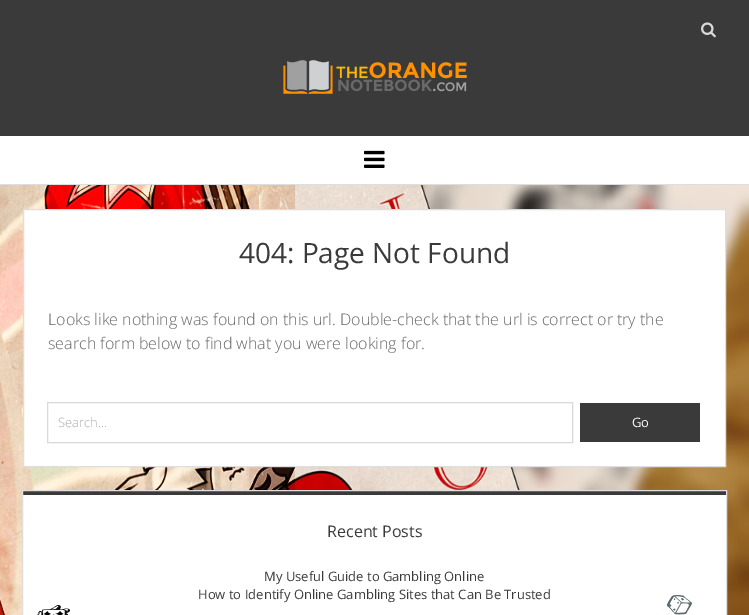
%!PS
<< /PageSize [749 615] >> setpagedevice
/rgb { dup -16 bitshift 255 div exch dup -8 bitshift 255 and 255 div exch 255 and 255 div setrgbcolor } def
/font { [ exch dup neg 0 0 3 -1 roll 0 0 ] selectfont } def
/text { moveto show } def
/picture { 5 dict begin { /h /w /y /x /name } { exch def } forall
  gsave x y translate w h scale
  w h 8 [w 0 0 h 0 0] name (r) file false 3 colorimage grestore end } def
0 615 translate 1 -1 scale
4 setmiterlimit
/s1 { /OpenSans-Regular 28 font 16#3A3A3A rgb } def
/s2 { /OpenSans-Light 16 font 16#666666 rgb } def
/s3 { /OpenSans-Light 13 font 16#ABABAB rgb } def
/s4 { /OpenSans-Regular 13 font 16#FFFFFF rgb } def
/s5 { /OpenSans-Regular 16 font 16#3A3A3A rgb } def
/s6 { /OpenSans-Regular 13 font 16#3A3A3A rgb } def
16#FFFFFF rgb
0 0 749 615 rectfill
(pic1.raw) 0 185 749 430 picture
16#3A3A3A rgb
0 0 749 136 rectfill
(pic2.raw) 701 22 15 16 picture
(pic3.raw) 283 60 184 34 picture
16#DEDEDE rgb
0 184 749 1 rectfill
(pic4.raw) 364 150 21 18 picture
16#FFFFFF rgb
23.5 209.5 moveto 725.5 209.5 lineto 725.5 466.5 lineto 23.5 466.5 lineto closepath gsave fill grestore
16#DEDEDE rgb
stroke
s1
(404: Page Not Found) 239 263 text
s2
(Looks like nothing was found on this url. Double-check that the url is correct or try the) 48 325 text
(search form below to find what you were looking for.) 48 349 text
16#D9D9D9 rgb
47.5 402.5 525 40 rectstroke
s3
(Search...) 58 427 text
16#3A3A3A rgb
580 403 120 39 rectfill
s4
(Go) 632 427 text
23 495 703 120 rectfill
(pic5.raw) 37 595 655 20 picture
16#3A3A3A rgb
23 491 703 4 rectfill
16#DEDEDE rgb
22.5 490.5 704 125 rectstroke
s5
(Recent Posts) 327 537 text
s6
(My Useful Guide to Gambling Online) 264 581 text
(How to Identify Online Gambling Sites that Can Be Trusted) 198 599 text
showpage
